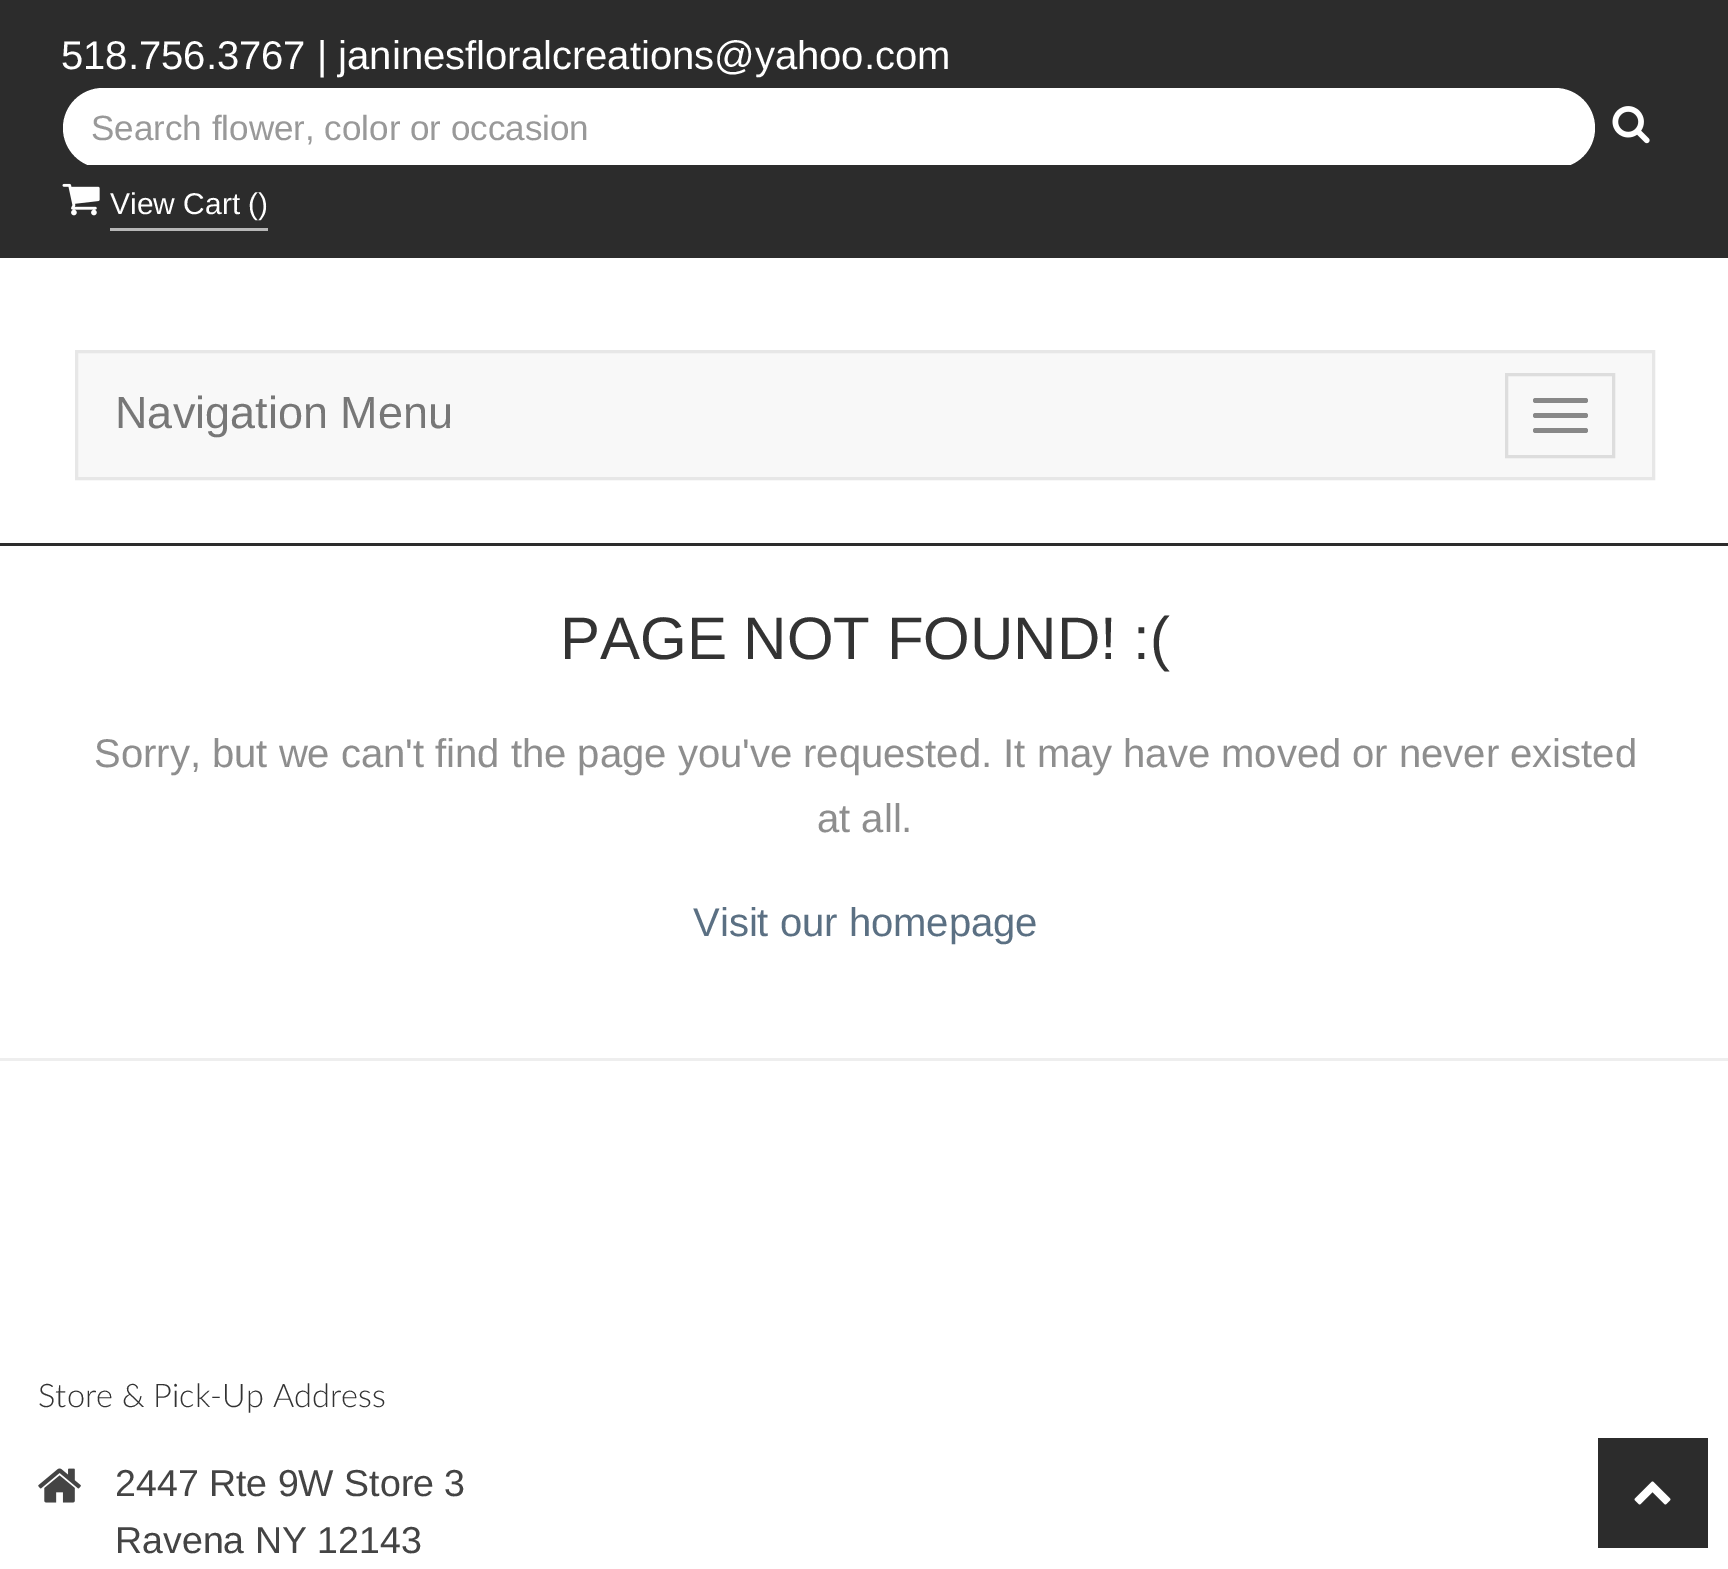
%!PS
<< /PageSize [1728 1569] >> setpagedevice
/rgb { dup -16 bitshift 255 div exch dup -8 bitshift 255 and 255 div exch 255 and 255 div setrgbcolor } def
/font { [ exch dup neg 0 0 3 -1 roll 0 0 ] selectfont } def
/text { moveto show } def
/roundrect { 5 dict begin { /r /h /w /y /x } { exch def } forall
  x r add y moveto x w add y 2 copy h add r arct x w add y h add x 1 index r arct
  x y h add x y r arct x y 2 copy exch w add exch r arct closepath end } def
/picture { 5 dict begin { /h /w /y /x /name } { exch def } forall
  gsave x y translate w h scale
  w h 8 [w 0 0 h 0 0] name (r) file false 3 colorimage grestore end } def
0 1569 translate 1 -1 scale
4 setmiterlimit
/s1 { /LiberationSans-Regular 40 font 16#FFFFFF rgb } def
/s2 { /LiberationSans-Regular 35 font 16#999999 rgb } def
/s3 { /LiberationSans-Regular 30 font 16#FFFFFF rgb } def
/s4 { /LiberationSans-Regular 45 font 16#777777 rgb } def
/s5 { /LiberationSans-Regular 60 font 16#333333 rgb } def
/s6 { /LiberationSans-Regular 40 font 16#8E8E8E rgb } def
/s7 { /LiberationSans-Regular 40 font 16#5B7083 rgb } def
/s8 { /Lato-Light 32.5 font 16#333333 rgb } def
/s9 { /LiberationSans-Regular 37.5 font 16#444444 rgb } def
16#FFFFFF rgb
0 0 1728 1569 rectfill
16#2C2C2C rgb
0 543 1728 3 rectfill
0 0 1728 258 rectfill
s1
(518.756.3767 | janinesfloralcreations@yahoo.com) 61 69 text
63 88 1532 80 40 roundrect fill
16#2C2C2C rgb
83 165 1492 3 rectfill
s2
(Search flower, color or occasion) 91 140 text
(pic1.raw) 1612 106 38 38 picture
(pic2.raw) 62 183 38 33 picture
s3
(View Cart \(\)) 110 214 text
16#B7B7B7 rgb
110 228 158 3 rectfill
16#F8F8F8 rgb
76.5 351.5 moveto 1653.5 351.5 lineto 1653.5 478.5 lineto 76.5 478.5 lineto closepath gsave fill grestore
16#E7E7E7 rgb
3 setlinewidth
stroke
s4
(Navigation Menu) 115 428 text
16#DDDDDD rgb
1506.5 374.5 107 82 rectstroke
16#888888 rgb
1533 398 55 5 2.5 roundrect fill
1533 413 55 5 2.5 roundrect fill
1533 428 55 5 2.5 roundrect fill
s5
(PAGE NOT FOUND! :\() 560 659 text
s6
(Sorry, but we can't find the page you've requested. It may have moved or never existed) 94 767 text
(at all.) 817 832 text
s7
(Visit our homepage) 693 936 text
16#EEEEEE rgb
0 1058 1728 3 rectfill
s8
(Store & Pick-Up Address) 38 1407 text
(pic3.raw) 38 1468 43 35 picture
s9
(2447 Rte 9W Store 3) 115 1496 text
(Ravena NY 12143) 115 1553 text
16#2C2C2C rgb
1598 1438 110 110 rectfill
(pic4.raw) 1634 1481 37 24 picture
showpage
